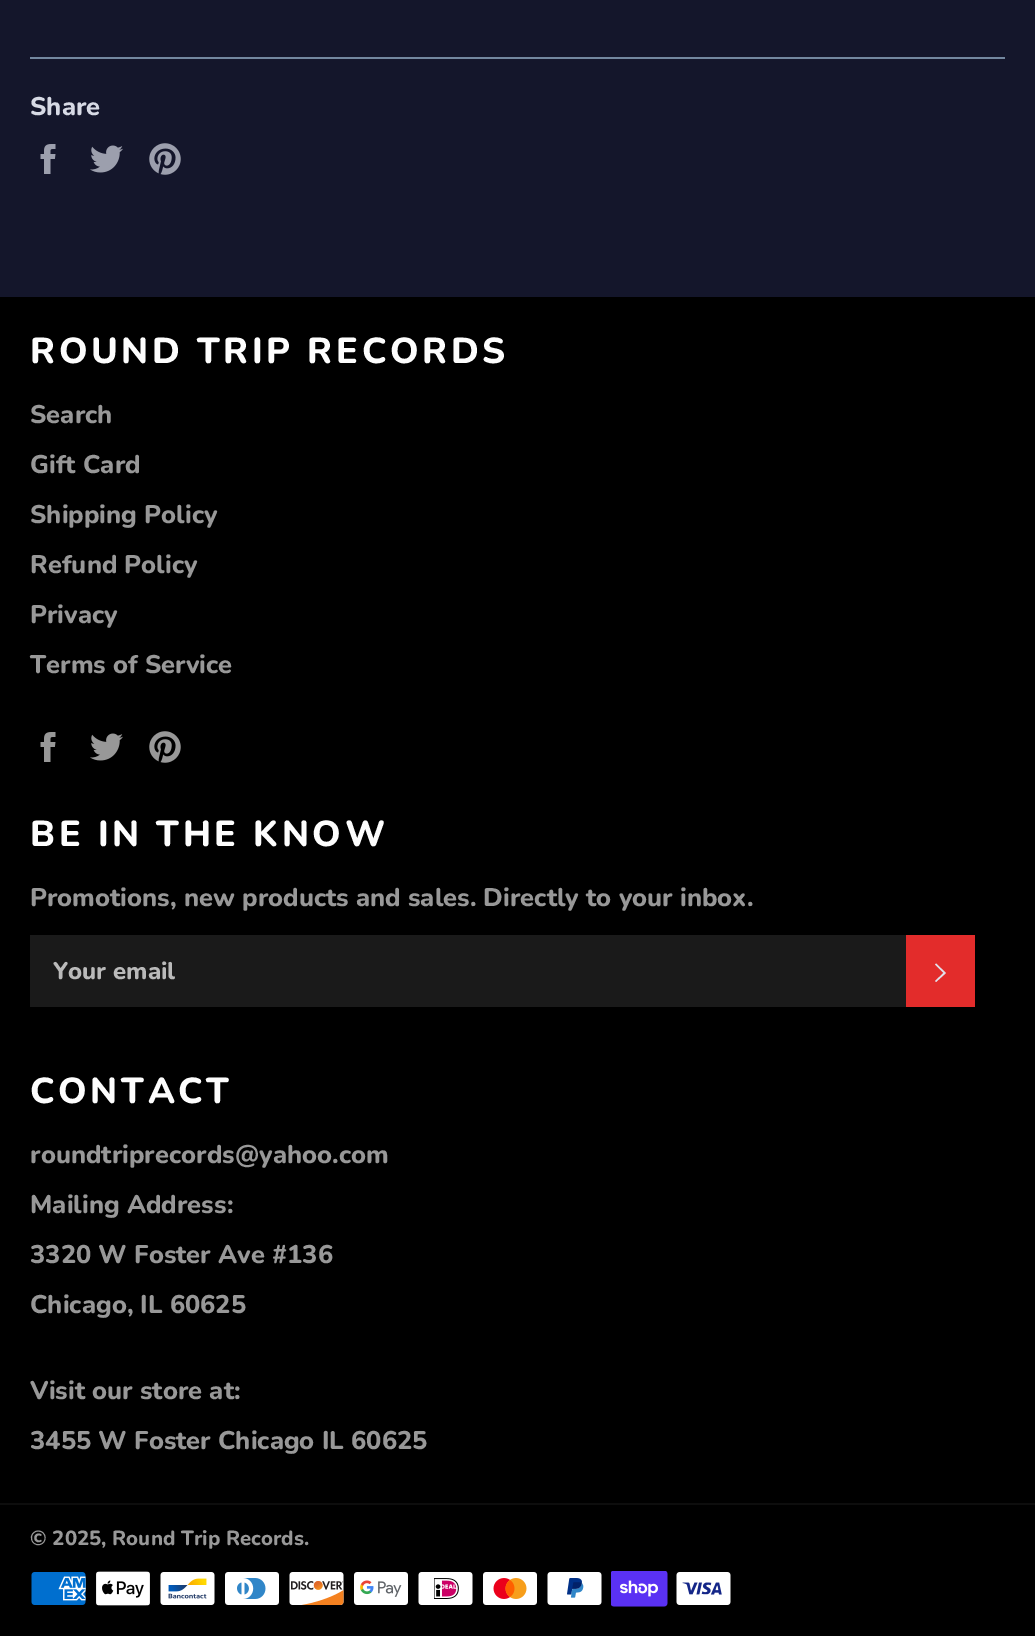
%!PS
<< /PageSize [1035 1636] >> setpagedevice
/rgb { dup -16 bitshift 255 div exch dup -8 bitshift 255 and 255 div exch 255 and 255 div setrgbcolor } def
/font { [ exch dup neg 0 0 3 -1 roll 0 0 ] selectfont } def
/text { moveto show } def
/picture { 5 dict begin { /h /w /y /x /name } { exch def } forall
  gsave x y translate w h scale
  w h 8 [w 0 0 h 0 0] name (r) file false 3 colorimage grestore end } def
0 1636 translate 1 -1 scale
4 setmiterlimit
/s1 { /Nunito-ExtraBold 25.5 font 16#D7DAE5 rgb } def
/s2 { /Nunito-ExtraBold 25.5 font 16#989898 rgb } def
/s3 { /Nunito-ExtraBold 24 font 16#BABABA rgb } def
/s4 { /Nunito-ExtraBold 20.4 font 16#989898 rgb } def
16#14162B rgb
0 0 1035 1636 rectfill
16#73879F rgb
30 57 975 2 rectfill
s1
(Share) 30 115 text
(pic1.raw) 40 144 16 30 picture
(pic2.raw) 90 145 33 28 picture
(pic3.raw) 149 143 32 32 picture
16#000000 rgb
0 297 1035 1339 rectfill
/Nunito-ExtraBold 36 font
16#FDFDFD rgb
30 363 moveto 3.6 0 (ROUND TRIP RECORDS) ashow
s2
(Search) 30 423 text
(Gift Card) 30 473 text
(Shipping Policy) 30 523 text
(Refund Policy) 30 573 text
(Privacy) 30 623 text
(Terms of Service) 30 673 text
(pic4.raw) 40 732 16 30 picture
(pic5.raw) 90 733 33 28 picture
(pic6.raw) 149 731 32 32 picture
/Nunito-ExtraBold 36 font
16#FDFDFD rgb
30 846 moveto 3.6 0 (BE IN THE KNOW) ashow
s2
(Promotions, new products and sales. Directly to your inbox.) 30 906 text
16#1A1A1A rgb
30 935 876 72 rectfill
s3
(Your email) 53 979 text
16#E32C2B rgb
906 935 69 72 rectfill
16#E0E1EB rgb
935 964.5 moveto 936 963.5 lineto 946 973 lineto 936 982 lineto 935 981 lineto 943.5 973 lineto closepath fill
/Nunito-ExtraBold 36 font
16#FDFDFD rgb
30 1103 moveto 3.6 0 (CONTACT) ashow
s2
(roundtriprecords@yahoo.com) 30 1163 text
(Mailing Address:) 30 1213 text
(3320 W Foster Ave #136) 30 1263 text
(Chicago, IL 60625) 30 1313 text
(Visit our store at:) 30 1399 text
(3455 W Foster Chicago IL 60625) 30 1449 text
16#0D0D0D rgb
0 1503 1035 2 rectfill
s4
(© 2025, Round Trip Records.) 30 1545 text
(pic7.raw) 31 1572 55 33 picture
(pic8.raw) 96 1571 54 35 picture
(pic9.raw) 160 1572 55 33 picture
(pic10.raw) 225 1572 54 33 picture
(pic11.raw) 289 1572 55 33 picture
(pic12.raw) 354 1572 54 33 picture
(pic13.raw) 418 1572 55 33 picture
(pic14.raw) 483 1572 54 33 picture
(pic15.raw) 547 1572 55 33 picture
(pic16.raw) 611 1571 57 36 picture
(pic17.raw) 676 1572 55 33 picture
showpage
